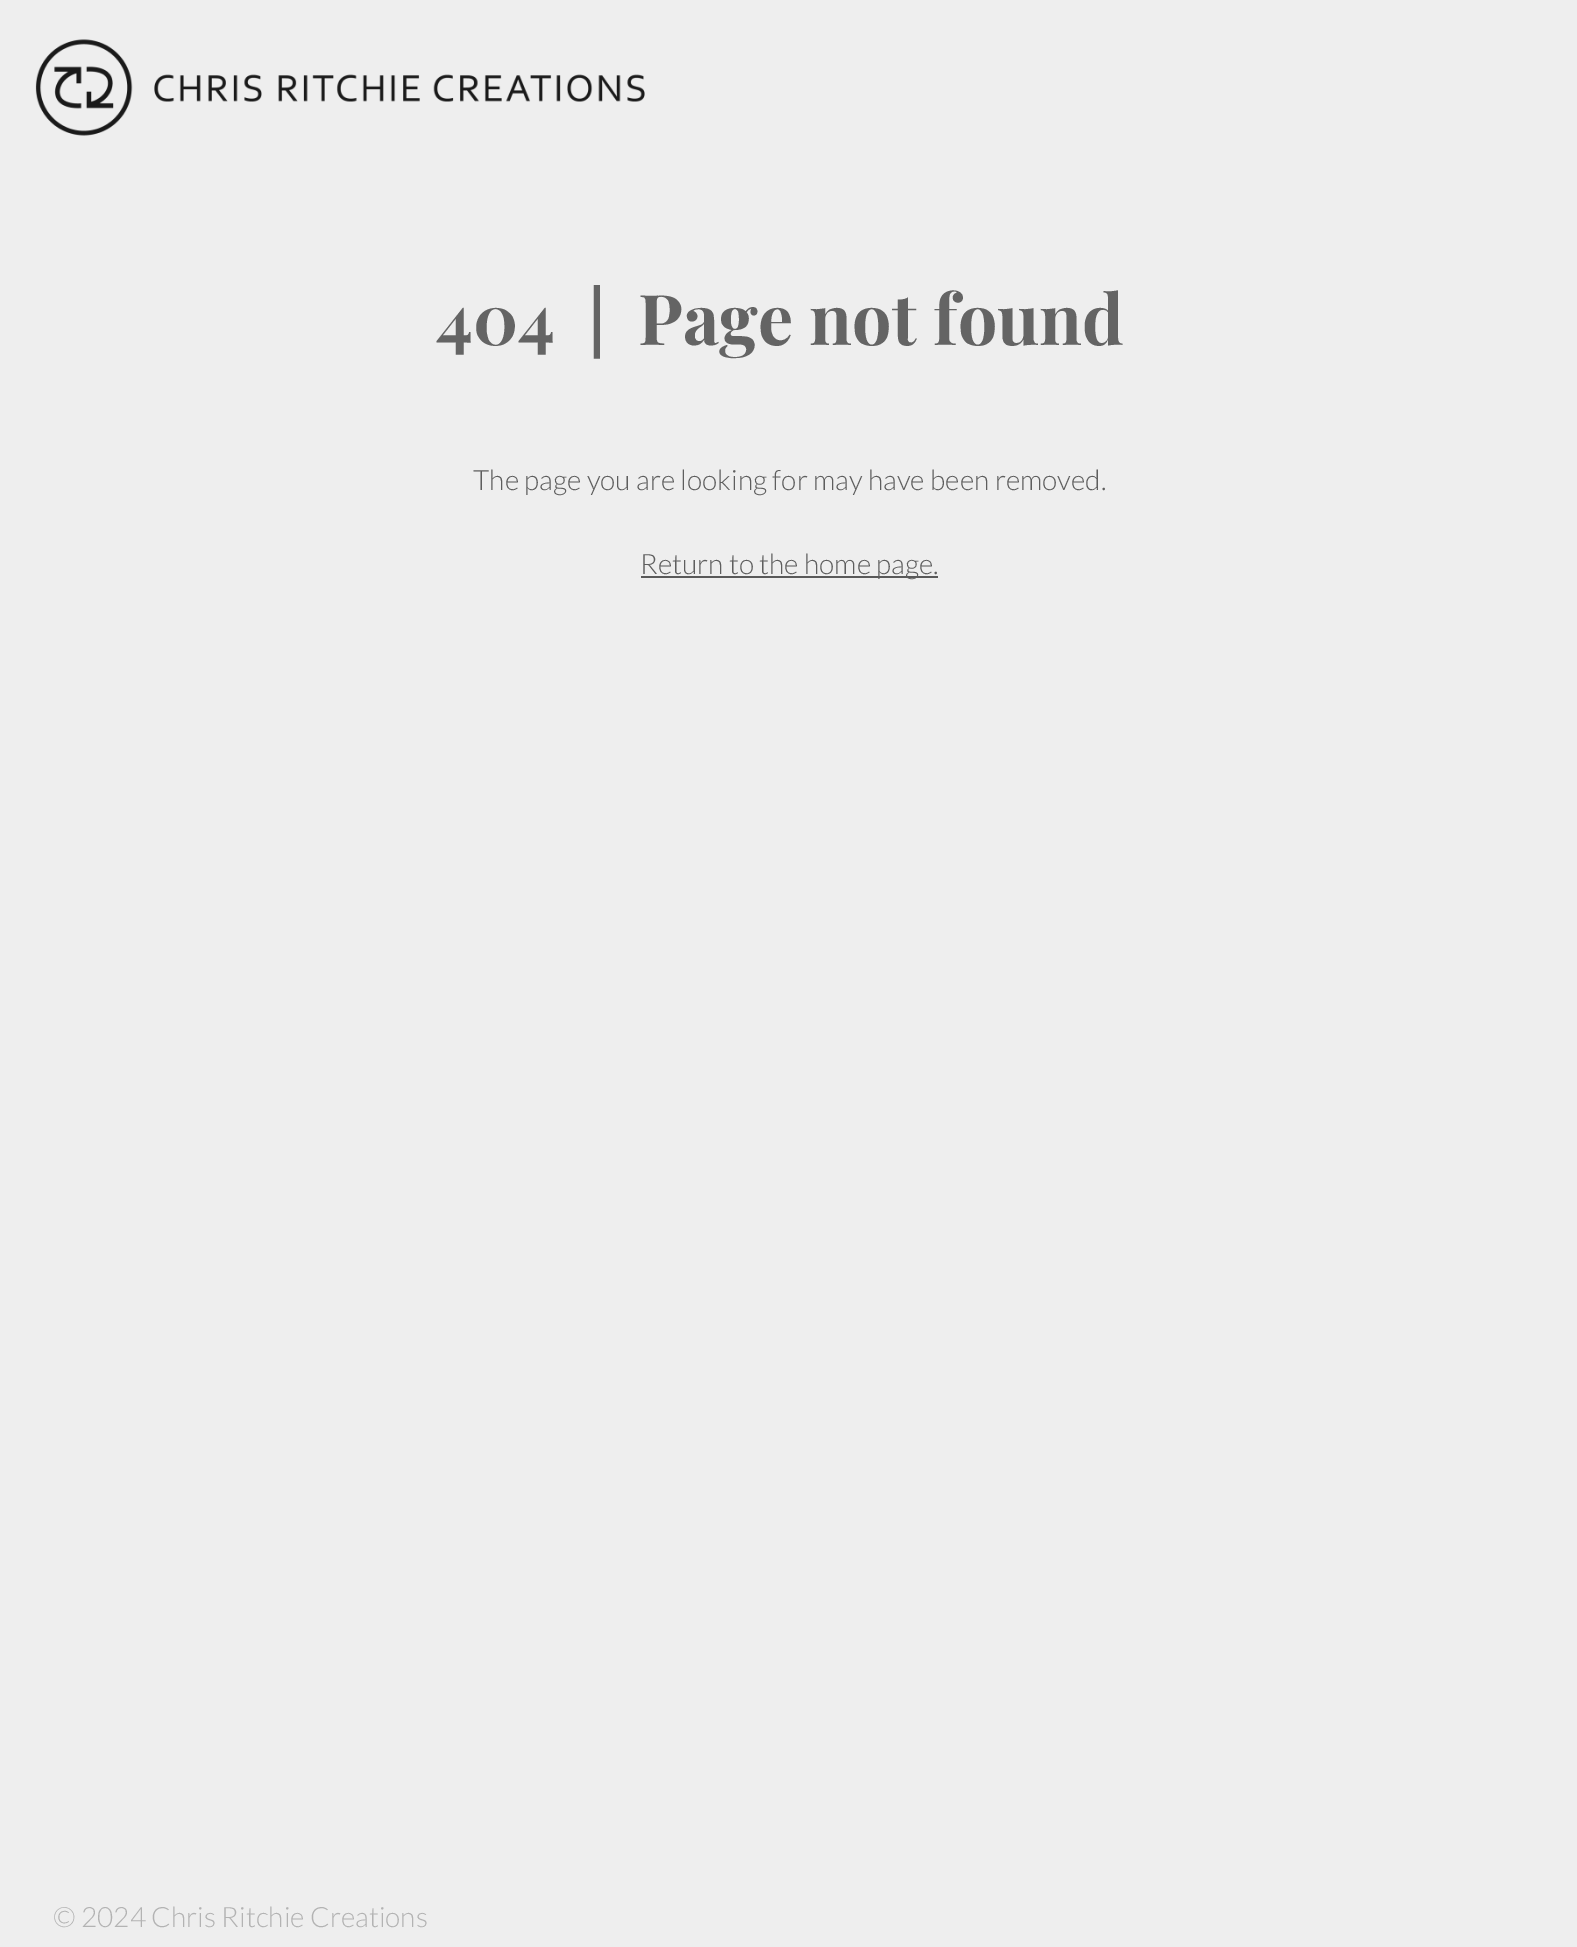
%!PS
<< /PageSize [1577 1947] >> setpagedevice
/rgb { dup -16 bitshift 255 div exch dup -8 bitshift 255 and 255 div exch 255 and 255 div setrgbcolor } def
/font { [ exch dup neg 0 0 3 -1 roll 0 0 ] selectfont } def
/text { moveto show } def
/picture { 5 dict begin { /h /w /y /x /name } { exch def } forall
  gsave x y translate w h scale
  w h 8 [w 0 0 h 0 0] name (r) file false 3 colorimage grestore end } def
0 1947 translate 1 -1 scale
4 setmiterlimit
/s1 { /PlayfairDisplay-Bold 70 font 16#646464 rgb } def
/s2 { /Lato-Light 28 font 16#5E5E5E rgb } def
/s3 { /Lato-Light 28 font 16#B3B3B3 rgb } def
16#EEEEEE rgb
0 0 1577 1947 rectfill
(pic1.raw) 35 39 610 97 picture
s1
(404  |  Page not found) 436 345 text
s2
(The page you are looking for may have been removed.) 473 490 text
16#595959 rgb
641 576 297 2 rectfill
s2
(Return to the home page.) 640 574 text
s3
(© 2024 Chris Ritchie Creations) 53 1927 text
showpage
